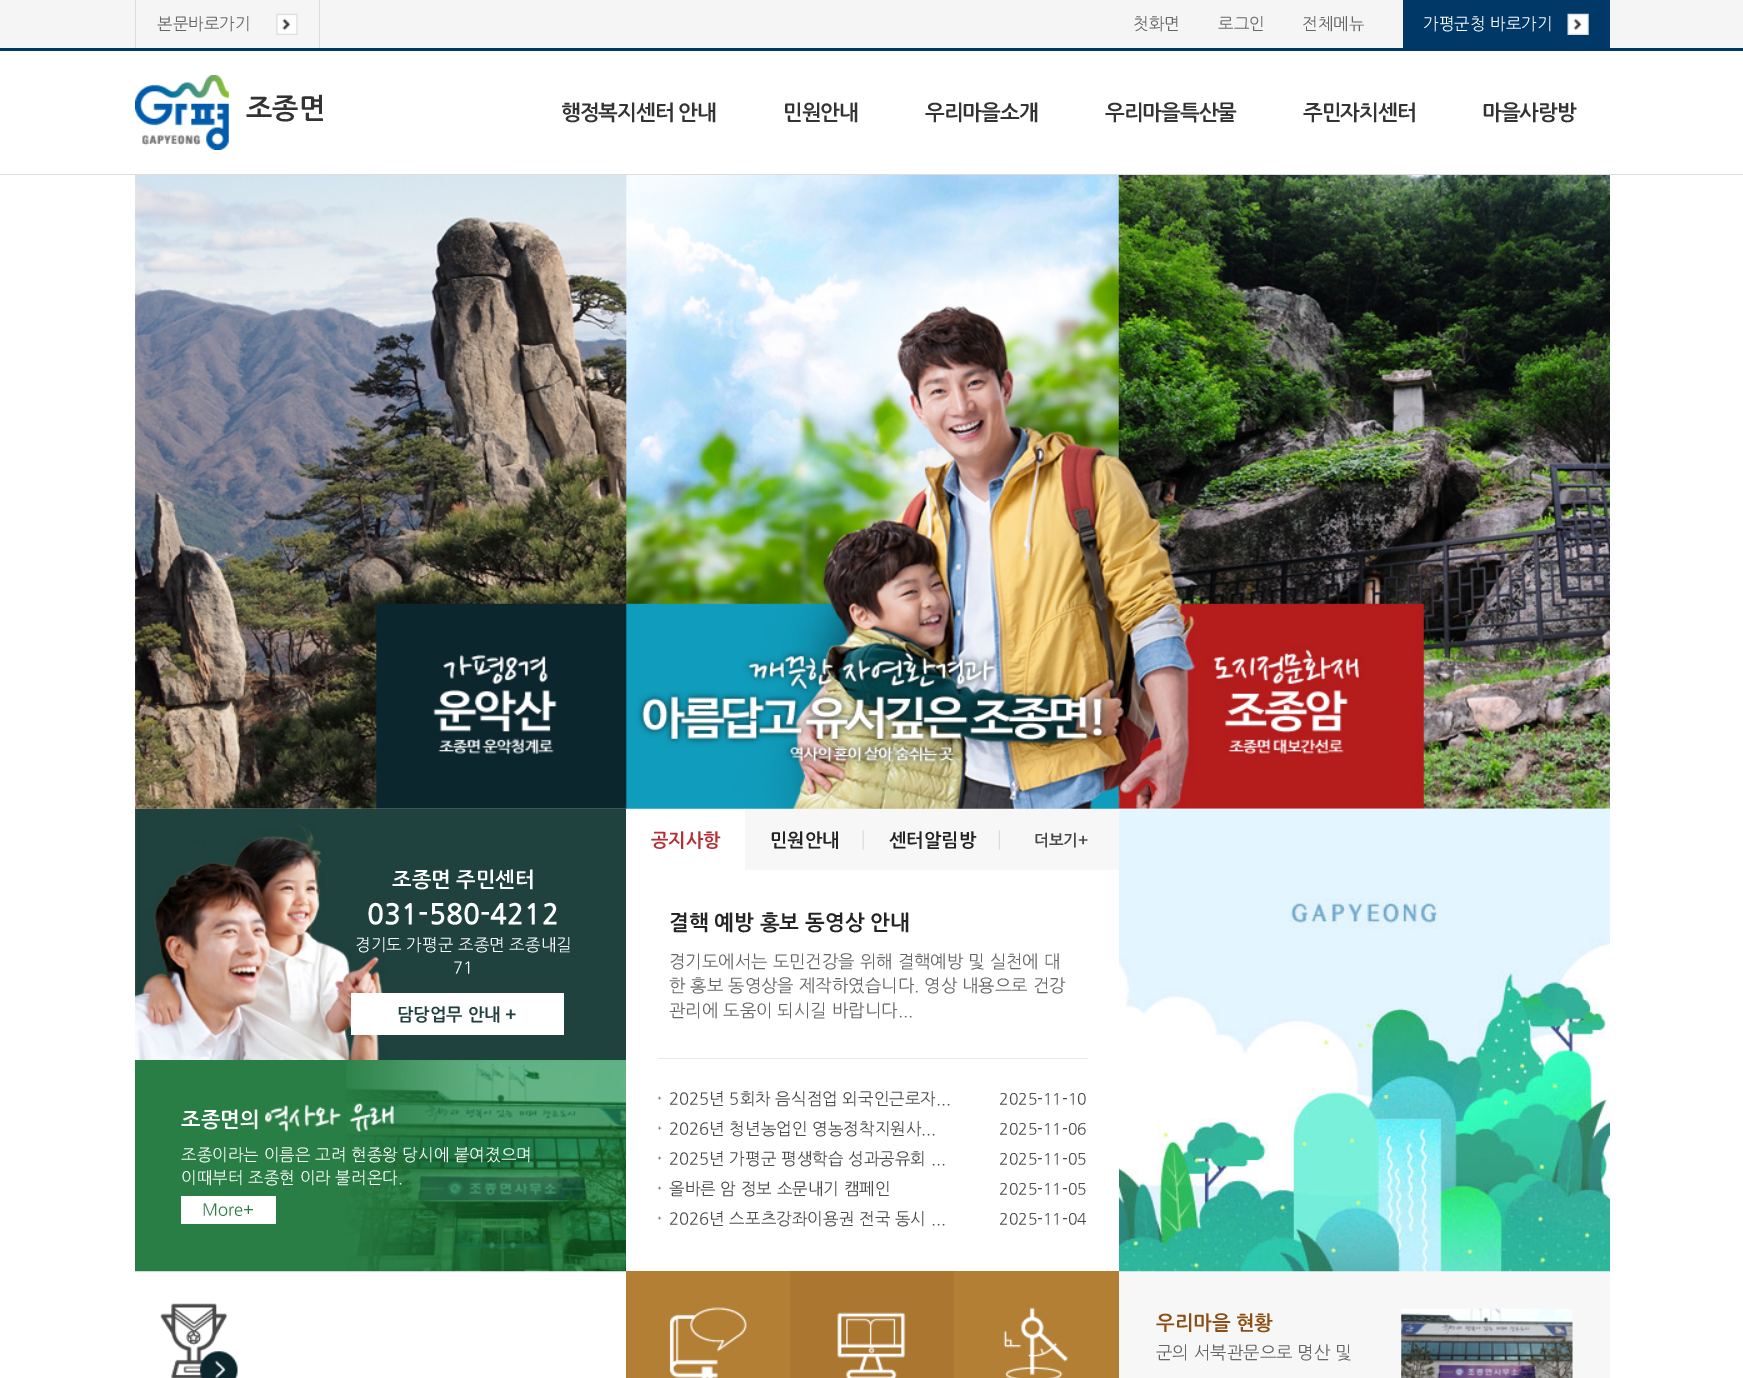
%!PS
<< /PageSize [1743 1378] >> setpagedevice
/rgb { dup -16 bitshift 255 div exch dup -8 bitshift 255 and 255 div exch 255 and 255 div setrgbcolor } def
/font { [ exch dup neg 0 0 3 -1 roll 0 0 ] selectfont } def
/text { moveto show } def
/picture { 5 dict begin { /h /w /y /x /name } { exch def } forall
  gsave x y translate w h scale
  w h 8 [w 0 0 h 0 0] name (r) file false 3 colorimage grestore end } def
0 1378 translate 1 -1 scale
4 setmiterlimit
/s1 { /NanumGothic-Regular 16.6 font 16#666666 rgb } def
/s2 { /NanumGothic-Regular 16.6 font 16#FFFFFF rgb } def
/s3 { /NanumGothic-Bold 28 font 16#333333 rgb } def
/s4 { /NanumGothic-Bold 20.75 font 16#FFFFFF rgb } def
/s5 { /NanumGothic-Bold 28.25 font 16#FFFFFF rgb } def
/s6 { /NanumGothic-Bold 17.5 font 16#1F413E rgb } def
/s7 { /NanumGothic-Regular 16.6 font 16#297E45 rgb } def
/s8 { /NanumGothic-Bold 18.5 font 16#B43035 rgb } def
/s9 { /NanumGothic-Bold 15.5 font 16#484848 rgb } def
/s10 { /NanumGothic-Bold 21 font 16#232323 rgb } def
/s11 { /NanumGothic-Regular 17.5 font 16#666666 rgb } def
/s12 { /NanumGothic-Regular 16.6 font 16#484848 rgb } def
/s13 { /NanumGothic-Regular 15.75 font 16#484848 rgb } def
/s14 { /NanumGothic-Bold 18.5 font 16#232323 rgb } def
/s15 { /NanumGothic-Bold 19.75 font 16#8C4E13 rgb } def
16#FFFFFF rgb
0 0 1743 1378 rectfill
16#DDDDDD rgb
0 174 1743 1 rectfill
16#F5F5F5 rgb
0 0 1743 48 rectfill
16#003867 rgb
0 48 1743 3 rectfill
(pic1.raw) 276 13 22 22 picture
16#DDDDDD rgb
319 0 1 48 rectfill
135 0 1 48 rectfill
s1
(본문바로가기) 157 29 text
(첫화면) 1133 29 text
(로그인) 1218 29 text
(전체메뉴) 1302 29 text
16#003867 rgb
1403 0 207 48 rectfill
(pic2.raw) 1567 13 22 22 picture
s2
(가평군청 바로가기) 1423 29 text
(pic3.raw) 135 75 94 75 picture
s3
(조종면) 246 117 text
/NanumGothic-Bold 21 font
561 119 moveto -1 0 (행정복지센터 안내) ashow
783 119 moveto -1 0 (민원안내) ashow
925 119 moveto -1 0 (우리마을소개) ashow
1105 119 moveto -1 0 (우리마을특산물) ashow
1303 119 moveto -1 0 (주민자치센터) ashow
1482 119 moveto -1 0 (마을사랑방) ashow
(pic4.raw) 135 175 1475 634 picture
(pic5.raw) 135 808 492 252 picture
s4
(조종면 주민센터) 392 886 text
s5
(031-580-4212) 367 923 text
s2
(경기도 가평군 조종면 조종내길) 355 950 text
(71) 453 973 text
351 993 213 42 rectfill
s6
(담당업무 안내 +) 397 1020 text
(pic6.raw) 135 1060 491 212 picture
s4
(조종면의) 181 1126 text
(pic7.raw) 265 1103 129 29 picture
s2
(조종이라는 이름은 고려 현종왕 당시에 붙여졌으며) 181 1160 text
(이때부터 조종현 이라 불러온다.) 181 1183 text
181 1196 95 28 rectfill
s7
(More+) 202 1215 text
(pic8.raw) 160 1303 78 75 picture
16#B37F35 rgb
626 1271 493 107 rectfill
16#F7F7F7 rgb
1119 1271 491 107 rectfill
(pic15.raw) 1118 808 492 464 picture
745 809 374 61 rectfill
16#FFFFFF rgb
626 809 1 61 rectfill
s8
(공지사항) 651 846 text
16#FFFFFF rgb
626 870 493 401 rectfill
s9
(더보기+) 1034 845 text
16#E8E8E8 rgb
658 1058 430 1 rectfill
s10
(결핵 예방 홍보 동영상 안내) 669 929 text
s11
(경기도에서는 도민건강을 위해 결핵예방 및 실천에 대) 669 967 text
(한 홍보 동영상을 제작하였습니다. 영상 내용으로 건강) 669 991 text
(관리에 도움이 되시길 바랍니다...) 669 1016 text
(pic9.raw) 657 1096 5 4 picture
s12
(2025년 5회차 음식점업 외국인근로자...) 669 1104 text
s13
(2025-11-10) 999 1104 text
(pic9.raw) 657 1126 5 4 picture
s12
(2026년 청년농업인 영농정착지원사...) 669 1134 text
s13
(2025-11-06) 999 1134 text
(pic9.raw) 657 1156 5 4 picture
s12
(2025년 가평군 평생학습 성과공유회 ...) 669 1164 text
s13
(2025-11-05) 999 1164 text
(pic9.raw) 657 1186 5 4 picture
s12
(올바른 암 정보 소문내기 캠페인) 669 1194 text
s13
(2025-11-05) 999 1194 text
(pic9.raw) 657 1216 5 4 picture
s12
(2026년 스포츠강좌이용권 전국 동시 ...) 669 1224 text
s13
(2025-11-04) 999 1224 text
(pic10.raw) 862 830 2 20 picture
s14
(민원안내) 770 846 text
(pic11.raw) 998 830 2 20 picture
(센터알림방) 889 846 text
(pic12.raw) 669 1307 78 71 picture
16#AB7630 rgb
790 1271 164 107 rectfill
(pic13.raw) 837 1312 69 66 picture
(pic14.raw) 1003 1307 65 71 picture
(pic16.raw) 1401 1308 172 70 picture
s15
(우리마을 현황) 1156 1329 text
s11
(군의 서북관문으로 명산 및) 1156 1358 text
showpage
